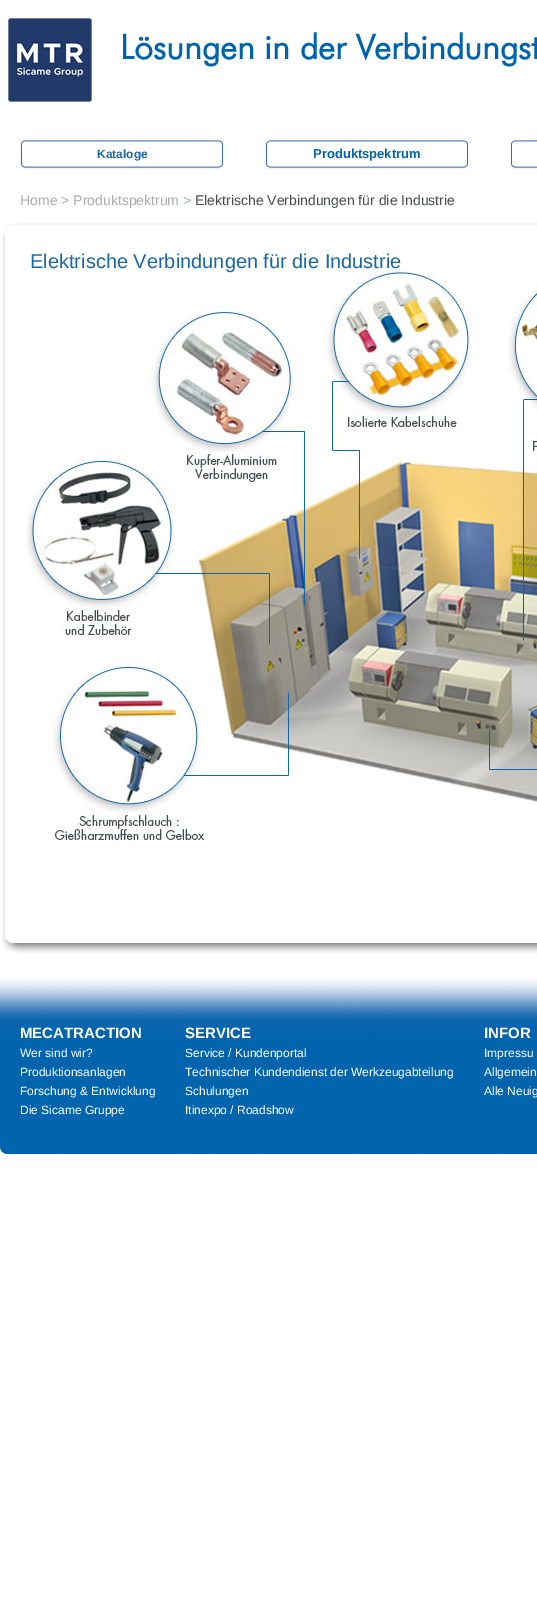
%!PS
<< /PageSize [537 1608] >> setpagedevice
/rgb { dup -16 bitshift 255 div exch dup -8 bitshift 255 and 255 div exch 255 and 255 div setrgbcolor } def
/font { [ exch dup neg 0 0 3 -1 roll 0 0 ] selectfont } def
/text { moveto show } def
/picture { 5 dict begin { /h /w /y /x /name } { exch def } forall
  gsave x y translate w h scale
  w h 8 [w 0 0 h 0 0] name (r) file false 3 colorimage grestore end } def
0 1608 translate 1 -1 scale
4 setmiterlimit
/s1 { /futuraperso-Bold 34 font 16#0064AD rgb } def
/s2 { /LiberationSans-Bold 12 font 16#1967A5 rgb } def
/s3 { /LiberationSans-Bold 13 font 16#0064AD rgb } def
/s4 { /LiberationSans-Regular 14 font 16#A5ACB5 rgb } def
/s5 { /LiberationSans-Regular 14 font 16#474A50 rgb } def
/s6 { /LiberationSans-Regular 20 font 16#1967A5 rgb } def
/s7 { /LiberationSans-Bold 15 font 16#FFFFFF rgb } def
/s8 { /LiberationSans-Regular 12 font 16#FFFFFF rgb } def
16#FFFFFF rgb
0 0 537 1608 rectfill
(pic1.raw) 8 18 84 84 picture
s1
(Lösungen in der Verbindungst) 120 59 text
(pic2.raw) 20 140 204 29 picture
s2
(Kataloge) 97 158 text
(pic2.raw) 265 140 204 29 picture
s3
(Produktspektrum) 313 158 text
(pic3.raw) 510 140 27 29 picture
s4
(Home > Produktspektrum >) 20 205 text
s5
(Elektrische Verbindungen für die Industrie) 195 205 text
(pic4.raw) 2 223 535 13 picture
(pic5.raw) 2 236 3 699 picture
(pic6.raw) 26 266 511 576 picture
s6
(Elektrische Verbindungen für die Industrie) 30 268 text
(pic7.raw) 2 935 535 18 picture
(pic8.raw) 0 977 537 177 picture
s7
(MECATRACTION) 20 1038 text
s8
(Wer sind wir?) 20 1057 text
(Produktionsanlagen) 20 1076 text
(Forschung & Entwicklung) 20 1095 text
(Die Sicame Gruppe) 20 1114 text
s7
(SERVICE) 185 1038 text
s8
(Service / Kundenportal) 185 1057 text
(Technischer Kundendienst der Werkzeugabteilung) 185 1076 text
(Schulungen) 185 1095 text
(Itinexpo / Roadshow) 185 1114 text
s7
(INFOR) 484 1038 text
s8
(Impressu) 484 1057 text
(Allgemein) 484 1076 text
(Alle Neuig) 484 1095 text
showpage
